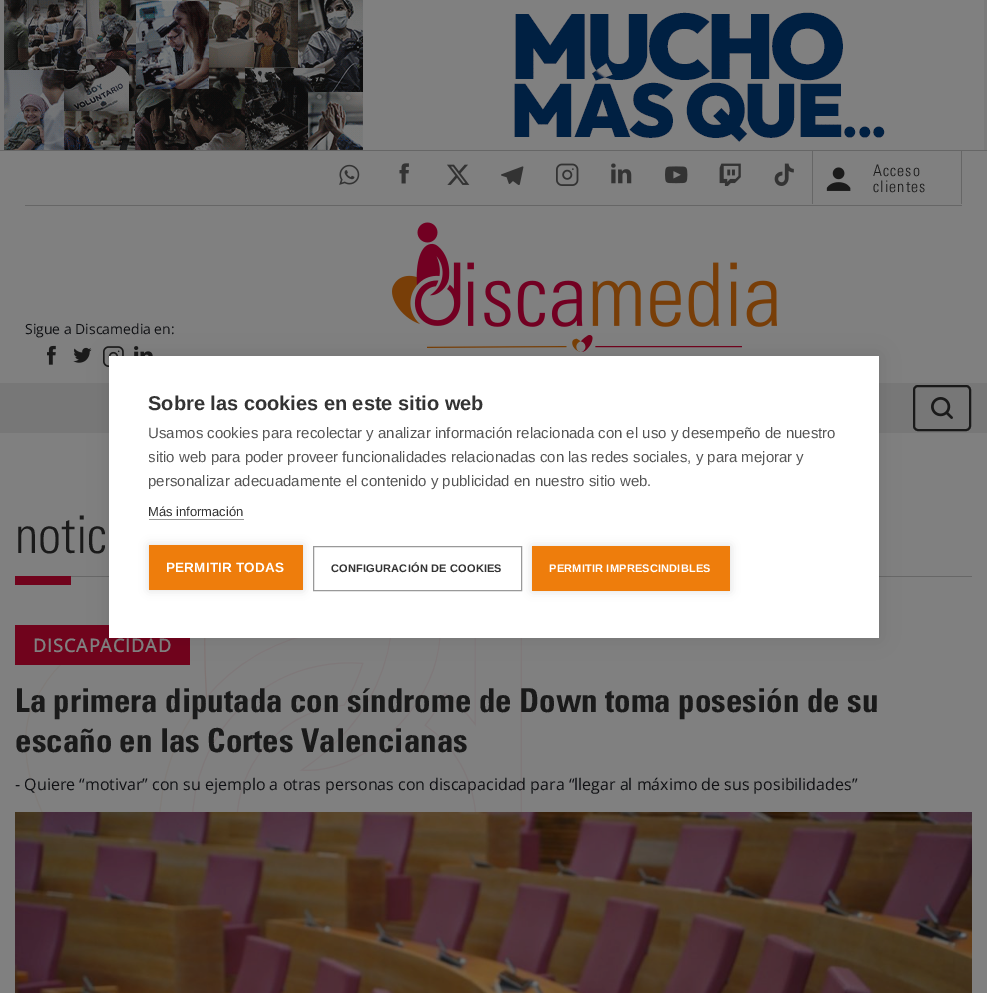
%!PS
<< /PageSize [987 993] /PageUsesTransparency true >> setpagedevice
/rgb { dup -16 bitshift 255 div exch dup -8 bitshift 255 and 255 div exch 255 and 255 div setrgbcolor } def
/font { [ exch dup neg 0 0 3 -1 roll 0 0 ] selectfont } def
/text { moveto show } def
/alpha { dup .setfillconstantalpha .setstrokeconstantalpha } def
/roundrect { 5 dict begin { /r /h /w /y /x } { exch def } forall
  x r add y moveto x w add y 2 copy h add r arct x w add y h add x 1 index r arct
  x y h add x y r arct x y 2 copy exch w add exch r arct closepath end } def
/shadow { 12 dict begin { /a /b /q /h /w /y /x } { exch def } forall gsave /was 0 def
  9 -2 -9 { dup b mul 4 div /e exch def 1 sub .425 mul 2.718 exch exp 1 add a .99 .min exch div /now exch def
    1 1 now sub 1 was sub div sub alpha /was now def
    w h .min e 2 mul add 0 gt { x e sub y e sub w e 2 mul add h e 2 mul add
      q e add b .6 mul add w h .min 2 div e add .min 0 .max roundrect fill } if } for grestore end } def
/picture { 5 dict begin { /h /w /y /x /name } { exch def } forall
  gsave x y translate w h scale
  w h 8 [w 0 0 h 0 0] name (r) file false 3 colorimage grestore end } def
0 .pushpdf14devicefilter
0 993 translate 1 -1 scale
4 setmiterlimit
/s1 { /OpenSans-Regular 14 font 16#101114 rgb } def
/s2 { /Univers-Light 52 font 16#1A1A1A rgb } def
/s3 { /Univers-Bold 33 font 16#1A1A1A rgb } def
/s4 { /OpenSans-Regular 16 font 16#101114 rgb } def
/s5 { /LiberationSans-Bold 20 font 16#333333 rgb } def
/s6 { /LiberationSans-Regular 15 font 16#555555 rgb } def
/s7 { /LiberationSans-Regular 13 font 16#333333 rgb } def
16#808080 rgb
0 0 987 993 rectfill
16#7A7A7A rgb
0 0 987 150 rectfill
16#666666 rgb
0 150 987 1 rectfill
(pic1.raw) 4 0 980 150 picture
(pic2.raw) 25 638 497 174 picture
25 205 937 1 rectfill
(pic3.raw) 339 164 21 21 picture
(pic4.raw) 399 163 10 21 picture
(pic5.raw) 447 164 23 21 picture
(pic6.raw) 501 166 23 19 picture
(pic7.raw) 556 163 23 23 picture
(pic8.raw) 611 163 21 21 picture
(pic9.raw) 665 166 23 18 picture
(pic10.raw) 719 163 22 23 picture
(pic11.raw) 774 163 20 23 picture
961 151 1 53 rectfill
812 151 1 53 rectfill
(pic12.raw) 826 167 25 24 picture
/Univers-Light 16 font
16#1A1A1A rgb
873 176 moveto 1 0 (Acceso) ashow
873 192 moveto 1 0 (clientes) ashow
s1
(Sigue a Discamedia en:) 25 334 text
(pic13.raw) 47 345 9 20 picture
(pic14.raw) 73 347 19 16 picture
(pic15.raw) 103 346 21 21 picture
(pic16.raw) 134 346 19 10 picture
(pic17.raw) 392 222 385 105 picture
(pic18.raw) 427 335 315 17 picture
16#777777 rgb
0 383 987 50 rectfill
(pic19.raw) 931 397 22 22 picture
16#1A1A1A rgb
2 setlinewidth
914 386 56 44 4 roundrect stroke
0.35 alpha
16#808080 rgb
25 638 497 174 rectfill
1 alpha
16#676767 rgb
71 576 901 1 rectfill
s2
(notic) 15 553 text
16#70031C rgb
15 576 56 9 rectfill
15 625 175 40 rectfill
/OpenSans-Bold 18 font
16#808080 rgb
33 652 moveto 1 0 (DISCAPACIDAD) ashow
s3
(La primera diputada con síndrome de Down toma posesión de su) 15 712 text
(escaño en las Cortes Valencianas) 15 752 text
s4
(- Quiere “motivar” con su ejemplo a otras personas con discapacidad para “llegar al máximo de sus posibilidades”) 15 790 text
(pic20.raw) 15 812 957 181 picture
16#000000 rgb
109 356 770 282 0 10 0.1 shadow
16#FFFFFF rgb
109 356 770 282 rectfill
s5
(Sobre las cookies en este sitio web) 148 410 text
s6
(Usamos cookies para recolectar y analizar información relacionada con el uso y desempeño de nuestro) 148 438 text
gsave
149 393 690 132 rectclip
(sitio web para poder proveer funcionalidades relacionadas con las redes sociales, y para mejorar y) 148 462 text
grestore
(personalizar adecuadamente el contenido y publicidad en nuestro sitio web.) 148 486 text
s7
(Más información) 148 516 text
16#999999 rgb
149 519 95 1 rectfill
16#000000 rgb
149 545 154 45 0 5 0.12 shadow
16#EE7D0C rgb
149 545 154 45 rectfill
/LiberationSans-Bold 13.5 font
16#FFFFFF rgb
166 572 moveto 0.2 0 (PERMITIR TODAS) ashow
16#999999 rgb
1 setlinewidth
313.5 546.5 208 44 rectstroke
/LiberationSans-Bold 11 font
16#333333 rgb
331 572 moveto 0.2 0 (CONFIGURACIÓN DE COOKIES) ashow
16#000000 rgb
532 546 198 45 0 5 0.12 shadow
16#EE7D0C rgb
532 546 198 45 rectfill
16#FFFFFF rgb
549 572 moveto 0.2 0 (PERMITIR IMPRESCINDIBLES) ashow
.poppdf14devicefilter showpage
